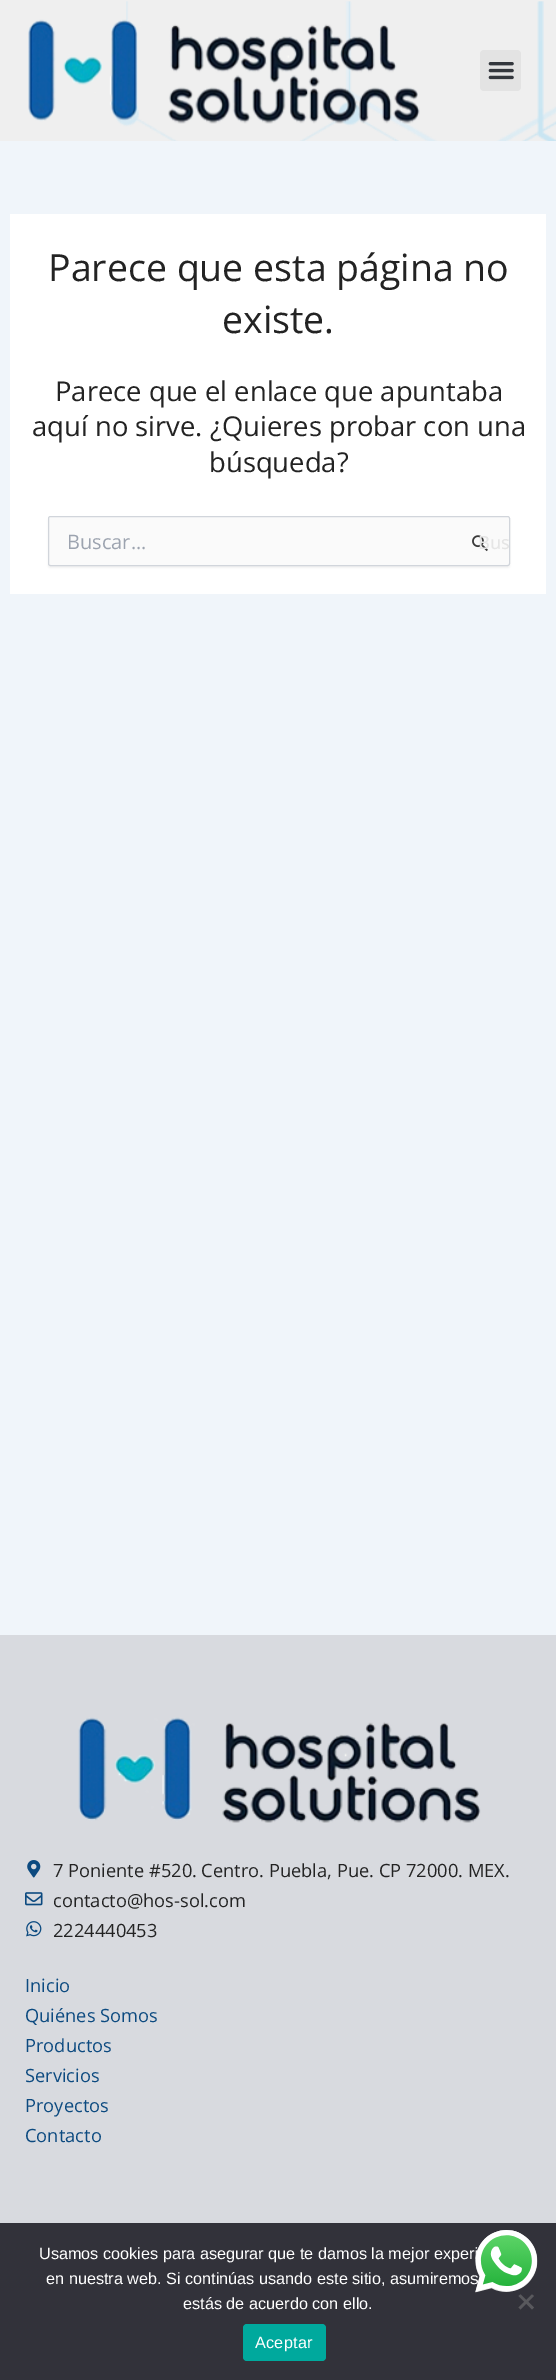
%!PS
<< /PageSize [556 2380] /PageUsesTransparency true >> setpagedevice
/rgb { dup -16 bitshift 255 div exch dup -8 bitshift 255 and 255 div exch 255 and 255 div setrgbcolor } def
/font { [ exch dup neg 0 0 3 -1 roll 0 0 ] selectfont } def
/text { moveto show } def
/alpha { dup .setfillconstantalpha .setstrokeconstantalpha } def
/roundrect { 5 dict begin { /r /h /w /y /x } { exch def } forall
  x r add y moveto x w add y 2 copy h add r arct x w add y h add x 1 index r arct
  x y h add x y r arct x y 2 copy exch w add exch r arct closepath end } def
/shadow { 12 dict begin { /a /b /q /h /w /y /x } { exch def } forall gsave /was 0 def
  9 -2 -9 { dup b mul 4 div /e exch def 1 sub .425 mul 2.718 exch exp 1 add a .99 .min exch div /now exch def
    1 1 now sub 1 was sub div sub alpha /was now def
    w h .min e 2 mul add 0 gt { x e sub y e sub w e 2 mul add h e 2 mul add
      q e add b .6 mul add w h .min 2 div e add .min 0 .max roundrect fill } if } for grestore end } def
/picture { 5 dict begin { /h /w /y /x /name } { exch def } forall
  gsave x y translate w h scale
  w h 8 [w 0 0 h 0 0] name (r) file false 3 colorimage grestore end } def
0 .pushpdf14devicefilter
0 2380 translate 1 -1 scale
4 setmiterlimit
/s1 { /OpenSans-Regular 37.5 font 16#232323 rgb } def
/s2 { /OpenSans-Regular 27.4 font 16#232323 rgb } def
/s3 { /OpenSans-Regular 20 font 16#9CA3AF rgb } def
/s4 { /OpenSans-Medium 18.25 font 16#E5E5E5 rgb } def
/s5 { /OpenSans-Regular 18.25 font 16#232323 rgb } def
/s6 { /OpenSans-Regular 18.25 font 16#0C4A80 rgb } def
/s7 { /LiberationSans-Regular 16.25 font 16#FFFFFF rgb } def
16#F0F5FA rgb
0 0 556 2380 rectfill
16#EFEFEF rgb
0 0 556 141 rectfill
(pic1.raw) 115 1 441 140 picture
(pic2.raw) 28 19 392 105 picture
16#E3E3E3 rgb
480 50 41 41 4 roundrect fill
(pic3.raw) 488 62 26 18 picture
16#FFFFFF rgb
10 214 536 380 rectfill
s1
(Parece que esta página no) 48 281 text
(existe.) 222 333 text
s2
(Parece que el enlace que apuntaba) 55 401 text
(aquí no sirve. ¿Quieres probar con una) 32 436 text
(búsqueda?) 209 472 text
16#000000 rgb
48 518 462 50 2.5 1 0.05 shadow
16#FAFAFA rgb
48.5 516.5 461 49 2 roundrect gsave fill grestore
16#D1D5DB rgb
stroke
s3
(Buscar...) 67 549 text
(pic4.raw) 472 535 16 17 picture
s4
(Bus) 478 549 text
16#D8DADF rgb
0 1635 556 588 rectfill
(pic5.raw) 78 1717 403 106 picture
(pic6.raw) 27 1860 14 18 picture
s5
(7 Poniente #520. Centro. Puebla, Pue. CP 72000. MEX.) 53 1877 text
(pic7.raw) 25 1892 18 14 picture
(contacto@hos-sol.com) 53 1907 text
(pic8.raw) 26 1921 16 16 picture
(2224440453) 53 1937 text
s6
(Inicio) 25 1992 text
(Quiénes Somos) 25 2022 text
(Productos) 25 2052 text
(Servicios) 25 2082 text
(Proyectos) 25 2112 text
(Contacto) 25 2142 text
16#32323A rgb
0 2223 556 157 rectfill
s7
(Usamos cookies para asegurar que te damos la mejor experi) 39 2259 text
(en nuestra web. Si continúas usando este sitio, asumiremos) 46 2284 text
(estás de acuerdo con ello.) 183 2309 text
16#59595D rgb
532 2294.5 moveto 534 2296 lineto 520.5 2309.5 lineto 518.5 2307.5 lineto closepath fill
518.5 2296 moveto 520.5 2294.5 lineto 534 2307.5 lineto 532 2309.5 lineto closepath fill
16#00A99D rgb
243 2324 83 37 4 roundrect fill
16#FFFFFF rgb
255 2348 moveto 0.25 0 (Aceptar) ashow
(pic9.raw) 475 2230 63 63 picture
.poppdf14devicefilter showpage
